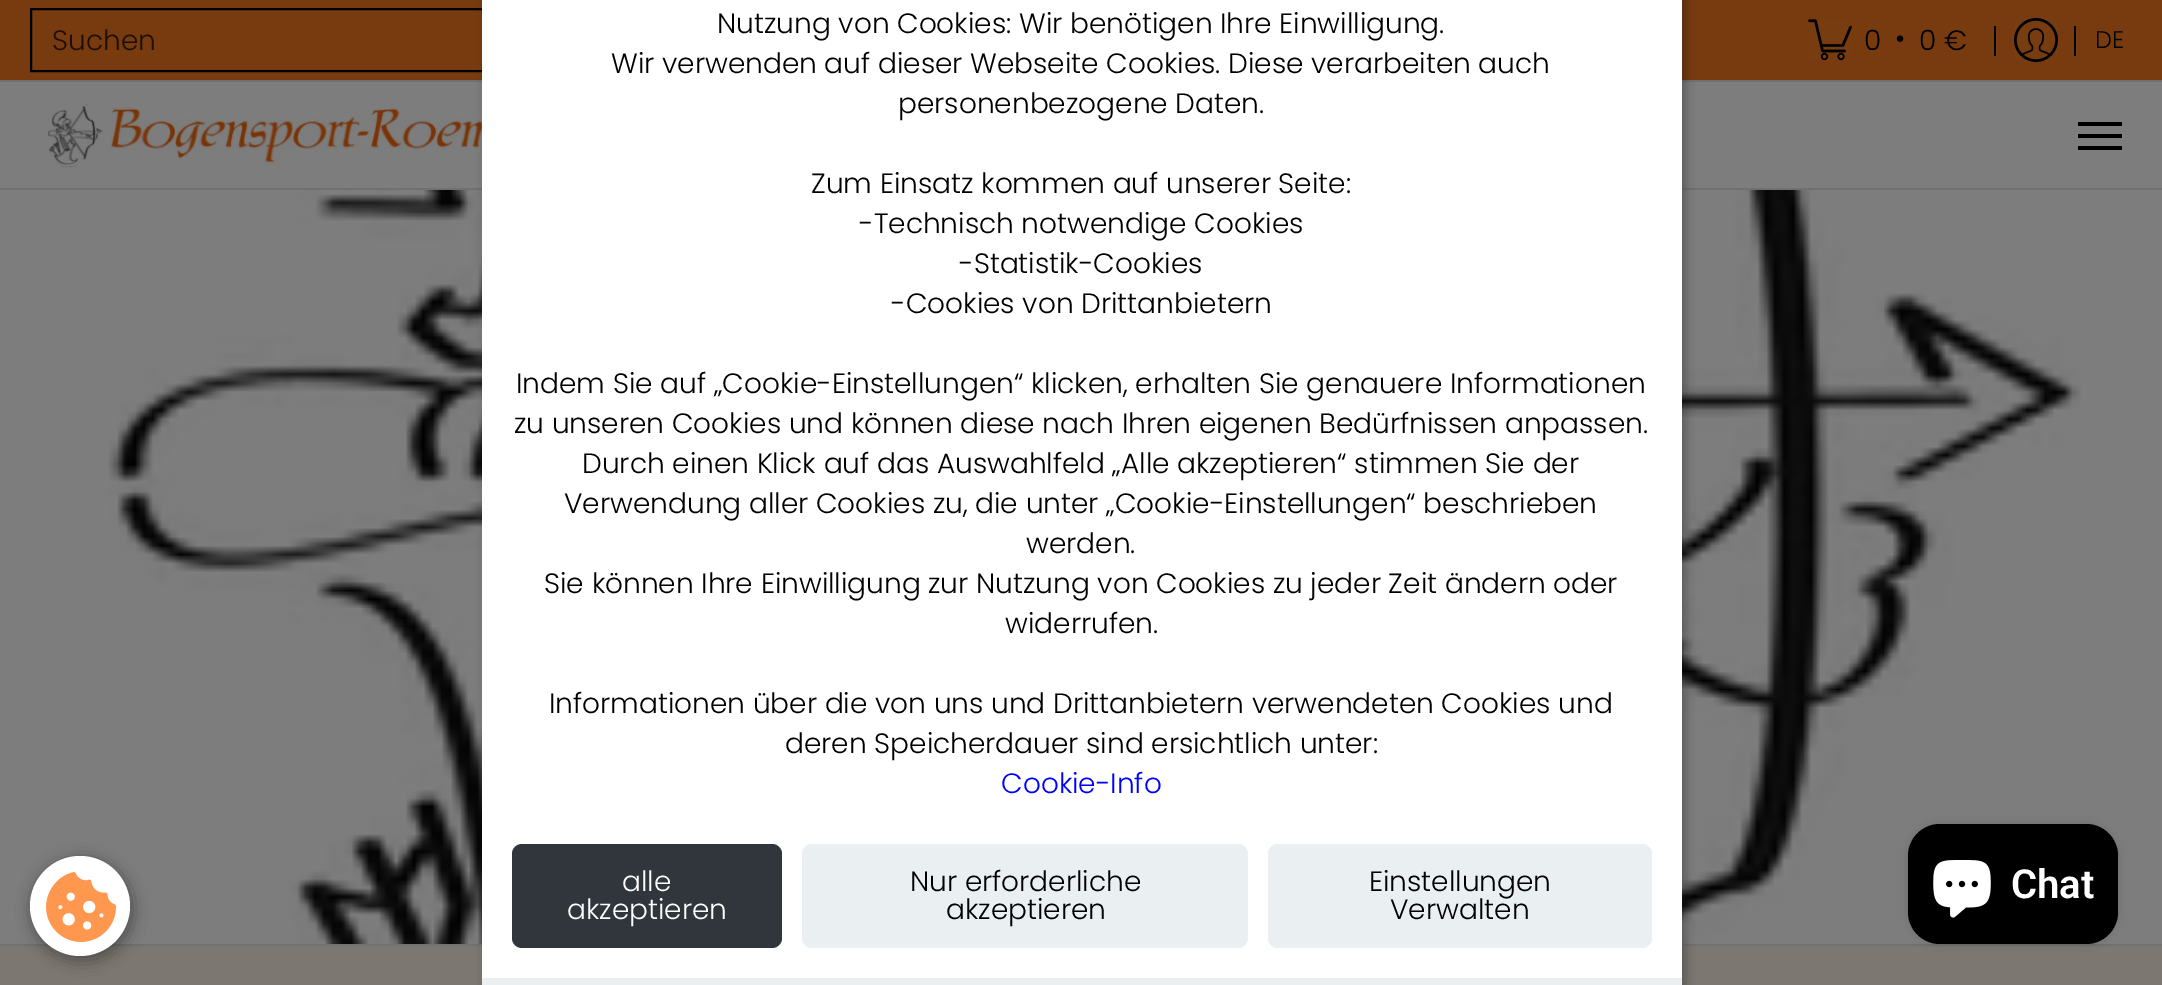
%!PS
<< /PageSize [2162 985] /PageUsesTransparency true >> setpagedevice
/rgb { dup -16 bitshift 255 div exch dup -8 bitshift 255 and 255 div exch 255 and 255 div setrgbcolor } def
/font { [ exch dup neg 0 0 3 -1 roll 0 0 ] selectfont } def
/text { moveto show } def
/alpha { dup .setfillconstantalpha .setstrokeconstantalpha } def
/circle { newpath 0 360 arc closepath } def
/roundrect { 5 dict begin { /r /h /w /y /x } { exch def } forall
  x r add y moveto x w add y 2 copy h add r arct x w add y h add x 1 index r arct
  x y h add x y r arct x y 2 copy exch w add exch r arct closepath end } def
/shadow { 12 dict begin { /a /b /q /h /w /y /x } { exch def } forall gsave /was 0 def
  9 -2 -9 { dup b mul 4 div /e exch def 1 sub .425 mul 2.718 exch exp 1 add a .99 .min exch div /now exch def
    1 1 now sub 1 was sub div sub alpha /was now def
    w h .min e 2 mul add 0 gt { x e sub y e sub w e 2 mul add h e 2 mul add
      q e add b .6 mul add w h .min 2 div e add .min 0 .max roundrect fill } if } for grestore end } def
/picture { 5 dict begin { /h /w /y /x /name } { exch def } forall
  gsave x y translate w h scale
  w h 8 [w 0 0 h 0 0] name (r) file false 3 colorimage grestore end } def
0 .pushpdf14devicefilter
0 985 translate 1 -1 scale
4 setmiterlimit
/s1 { /Poppins-Light 28 font 16#000000 rgb } def
/s2 { /Poppins-Light 28 font 16#0000FF rgb } def
/s3 { /Poppins-Light 28 font 16#FFFFFF rgb } def
/s4 { /Poppins-Light 28 font 16#1E0F04 rgb } def
/s5 { /Poppins-Light 24 font 16#000000 rgb } def
/s6 { /Roboto-SemiBold 40 font 16#FFFFFF rgb } def
16#7D7D7D rgb
0 0 2162 985 rectfill
16#773B0F rgb
0 0 2162 80 rectfill
16#707070 rgb
0 80 2162 2 rectfill
16#000000 rgb
2 setlinewidth
31 9 1198 62 rectstroke
16#707070 rgb
0 188 2162 2 rectfill
(pic3.raw) 47 102 435 66 picture
0 944 2162 2 rectfill
(pic4.raw) 108 190 1973 754 picture
16#7C7871 rgb
0 946 2162 39 rectfill
16#000000 rgb
486 -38 1200 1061 20 6 0.15 shadow
486 -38 1200 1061 20 6 0.15 shadow
16#FFFFFF rgb
482 0 1200 978 rectfill
s1
(Nutzung von Cookies: Wir benötigen Ihre Einwilligung.) 717 33 text
(Wir verwenden auf dieser Webseite Cookies. Diese verarbeiten auch) 611 73 text
(personenbezogene Daten.) 898 113 text
(Zum Einsatz kommen auf unserer Seite:) 811 193 text
(-Technisch notwendige Cookies) 859 233 text
(-Statistik-Cookies) 959 273 text
(-Cookies von Drittanbietern) 891 313 text
(Indem Sie auf „Cookie-Einstellungen“ klicken, erhalten Sie genauere Informationen) 516 393 text
(zu unseren Cookies und können diese nach Ihren eigenen Bedürfnissen anpassen.) 514 433 text
(Durch einen Klick auf das Auswahlfeld „Alle akzeptieren“ stimmen Sie der) 582 473 text
(Verwendung aller Cookies zu, die unter „Cookie-Einstellungen“ beschrieben) 564 513 text
(werden.) 1026 553 text
(Sie können Ihre Einwilligung zur Nutzung von Cookies zu jeder Zeit ändern oder) 544 593 text
(widerrufen.) 1005 633 text
(Informationen über die von uns und Drittanbietern verwendeten Cookies und) 549 713 text
(deren Speicherdauer sind ersichtlich unter:) 785 753 text
s2
(Cookie-Info) 1001 793 text
16#30363C rgb
512 844 270 104 10 roundrect fill
s3
(alle) 622 891 text
(akzeptieren) 567 919 text
16#EAEFF2 rgb
802 844 446 104 10 roundrect fill
s1
(Nur erforderliche) 910 891 text
(akzeptieren) 946 919 text
16#EAEFF2 rgb
1268 844 384 104 10 roundrect fill
s1
(Einstellungen) 1369 891 text
(Verwalten) 1390 919 text
16#EAEFF2 rgb
482 980 1200 5 rectfill
16#EEEEEE rgb
482 978 1200 2 rectfill
s4
(Suchen) 52 50 text
(pic1.raw) 1808 19 44 42 picture
s1
(0) 1864 50 text
(•) 1895 48 text
(0 €) 1919 50 text
1994 26 2 30 rectfill
(pic2.raw) 2014 18 44 44 picture
2074 26 2 30 rectfill
s5
(DE) 2095 48 text
2078 122 44 4 rectfill
2078 146 44 4 rectfill
2078 134 44 4 rectfill
32 860 100 100 50 8 0.2 shadow
32 860 100 100 50 8 0.2 shadow
16#FFFFFF rgb
80 906 50 circle fill
114 940 2 2 rectfill
(pic5.raw) 46 872 70 70 picture
16#000000 rgb
1908 824 210 120 32 5 0.15 shadow
1908 824 210 120 32 roundrect fill
(pic6.raw) 1933 860 58 58 picture
s6
(Chat) 2011 898 text
.poppdf14devicefilter showpage
